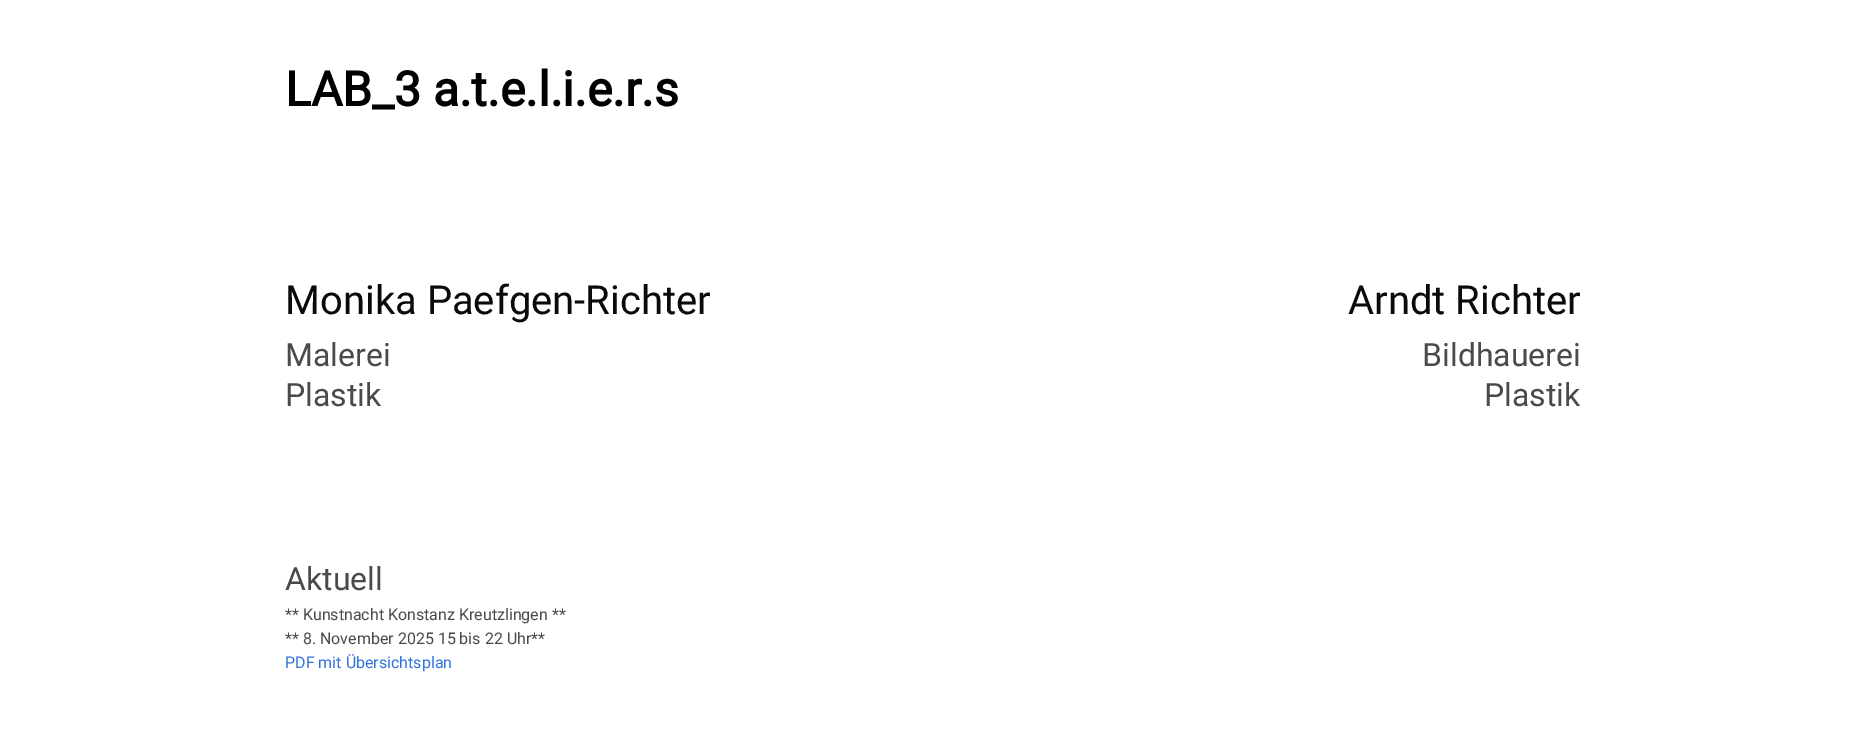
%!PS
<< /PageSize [1865 751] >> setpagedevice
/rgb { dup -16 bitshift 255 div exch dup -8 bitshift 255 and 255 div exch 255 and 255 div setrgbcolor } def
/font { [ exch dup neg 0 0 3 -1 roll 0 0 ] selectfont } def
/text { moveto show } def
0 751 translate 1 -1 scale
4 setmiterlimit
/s1 { /Roboto-Bold 48 font 16#000000 rgb } def
/s2 { /Roboto-Regular 40 font 16#0A0A0A rgb } def
/s3 { /Roboto-Regular 32 font 16#4A4A4A rgb } def
/s4 { /Roboto-Regular 16 font 16#4A4A4A rgb } def
/s5 { /Roboto-Regular 16 font 16#3273DC rgb } def
16#FFFFFF rgb
0 0 1865 751 rectfill
s1
(LAB_3 a.t.e.l.i.e.r.s) 285 106 text
s2
(Monika Paefgen-Richter) 285 314 text
s3
(Malerei) 285 366 text
(Plastik) 285 406 text
s2
(Arndt Richter) 1348 314 text
s3
(Bildhauerei) 1422 366 text
(Plastik) 1484 406 text
(Aktuell) 285 590 text
s4
(** Kunstnacht Konstanz Kreutzlingen **) 285 620 text
(** 8. November 2025 15 bis 22 Uhr**) 285 644 text
s5
(PDF mit Übersichtsplan) 285 668 text
showpage
